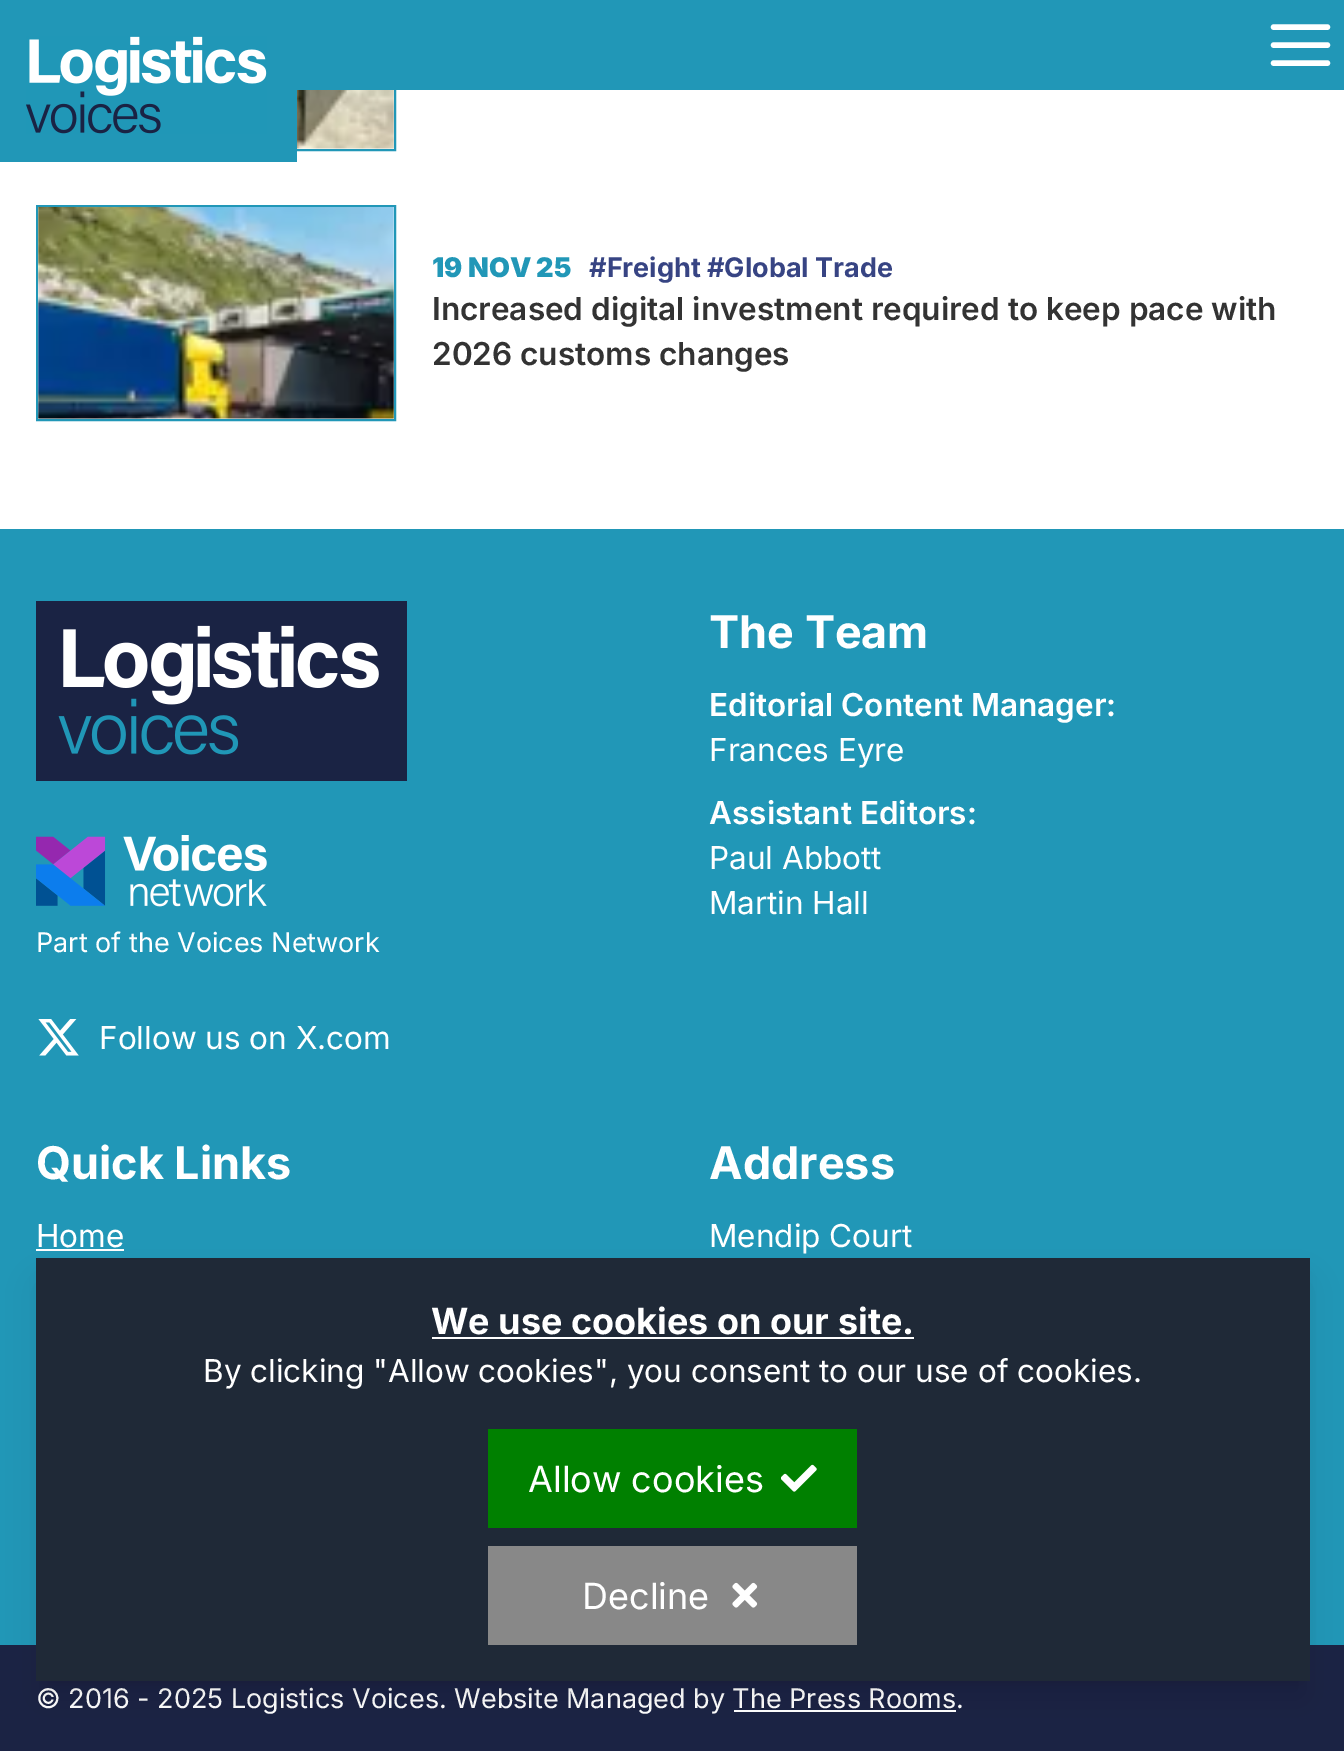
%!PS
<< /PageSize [1344 1751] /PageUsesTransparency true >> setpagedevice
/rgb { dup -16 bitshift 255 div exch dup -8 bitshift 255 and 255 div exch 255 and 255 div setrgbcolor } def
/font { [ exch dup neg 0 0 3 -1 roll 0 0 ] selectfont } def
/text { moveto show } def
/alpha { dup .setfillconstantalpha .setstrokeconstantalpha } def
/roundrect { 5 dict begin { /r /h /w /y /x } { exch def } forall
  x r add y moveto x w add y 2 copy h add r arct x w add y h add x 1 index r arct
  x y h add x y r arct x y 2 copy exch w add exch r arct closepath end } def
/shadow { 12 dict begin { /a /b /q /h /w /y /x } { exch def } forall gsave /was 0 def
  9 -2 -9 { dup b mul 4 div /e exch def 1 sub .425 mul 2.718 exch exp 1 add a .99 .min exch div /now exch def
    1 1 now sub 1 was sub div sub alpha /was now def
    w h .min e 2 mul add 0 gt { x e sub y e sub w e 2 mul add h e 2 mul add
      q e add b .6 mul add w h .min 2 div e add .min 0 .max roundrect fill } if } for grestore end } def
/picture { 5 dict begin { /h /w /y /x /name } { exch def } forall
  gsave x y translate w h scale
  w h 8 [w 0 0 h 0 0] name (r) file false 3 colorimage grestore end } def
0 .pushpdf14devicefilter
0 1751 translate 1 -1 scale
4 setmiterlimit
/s1 { /Inter-Black 27 font 16#2197B7 rgb } def
/s2 { /Inter-Bold 27 font 16#374483 rgb } def
/s3 { /Inter-SemiBold 31.5 font 16#333333 rgb } def
/s4 { /Inter-Bold 45 font 16#FFFFFF rgb } def
/s5 { /Inter-SemiBold 31.5 font 16#FFFFFF rgb } def
/s6 { /Inter-Regular 31.5 font 16#FFFFFF rgb } def
/s7 { /Inter-Regular 27 font 16#FFFFFF rgb } def
/s8 { /Inter-Bold 36 font 16#FFFFFF rgb } def
/s9 { /Inter-Regular 36 font 16#FFFFFF rgb } def
16#FFFFFF rgb
0 0 1344 1751 rectfill
16#2197B7 rgb
2 setlinewidth
37 -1 358 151 rectstroke
0 0 1344 90 rectfill
16#FFFFFF rgb
5.4 setlinewidth
1 setlinecap
1273.5 27 moveto 1327.5 27 lineto 1273.5 45 moveto 1327.5 45 lineto 1273.5 63 moveto 1327.5 63 lineto stroke
16#2197B7 rgb
0 90 297 72 rectfill
(pic1.raw) 26 36 241 98 picture
(pic2.raw) 297 90 97 59 picture
2 setlinewidth
0 setlinecap
37 206 358 214 rectstroke
(pic3.raw) 38 207 356 212 picture
s1
(19 NOV 25) 432 277 text
s2
(#Freight #Global Trade) 589 277 text
s3
(Increased digital investment required to keep pace with) 432 320 text
(2026 customs changes) 432 365 text
16#2197B7 rgb
0 529 1344 1116 rectfill
s4
(The Team) 709 648 text
s5
(Editorial Content Manager:) 709 716 text
s6
(Frances Eyre) 709 761 text
s5
(Assistant Editors:) 709 824 text
s6
(Paul Abbott) 709 869 text
(Martin Hall) 709 914 text
(pic4.raw) 36 601 371 180 picture
(pic5.raw) 36 835 231 72 picture
s7
(Part of the Voices Network) 36 952 text
(pic6.raw) 38 1019 41 37 picture
s6
(Follow us on X.com) 99 1049 text
s4
(Quick Links) 36 1179 text
s6
(Home) 36 1247 text
36 1249 88 2 rectfill
s4
(Address) 709 1179 text
s6
(Mendip Court) 709 1247 text
16#1B2344 rgb
0 1645 1344 106 rectfill
s7
(© 2016 - 2025 Logistics Voices. Website Managed by The Press Rooms.) 36 1708 text
734 1710 222 2 rectfill
16#000000 rgb
45 1276 1256 405 0 7 0.1 shadow
43 1287 1260 410 0 17 0.1 shadow
16#1F2937 rgb
36 1258 1274 423 rectfill
s8
(We use cookies on our site.) 431 1334 text
432 1337 482 2 rectfill
s6
(By clicking "Allow cookies", you consent to our use of cookies.) 203 1382 text
16#008000 rgb
488 1429 369 99 rectfill
s9
(Allow cookies) 528 1492 text
(pic7.raw) 781 1464 36 28 picture
16#888888 rgb
488 1546 369 99 rectfill
s9
(Decline) 582 1609 text
(pic8.raw) 732 1582 26 26 picture
.poppdf14devicefilter showpage
